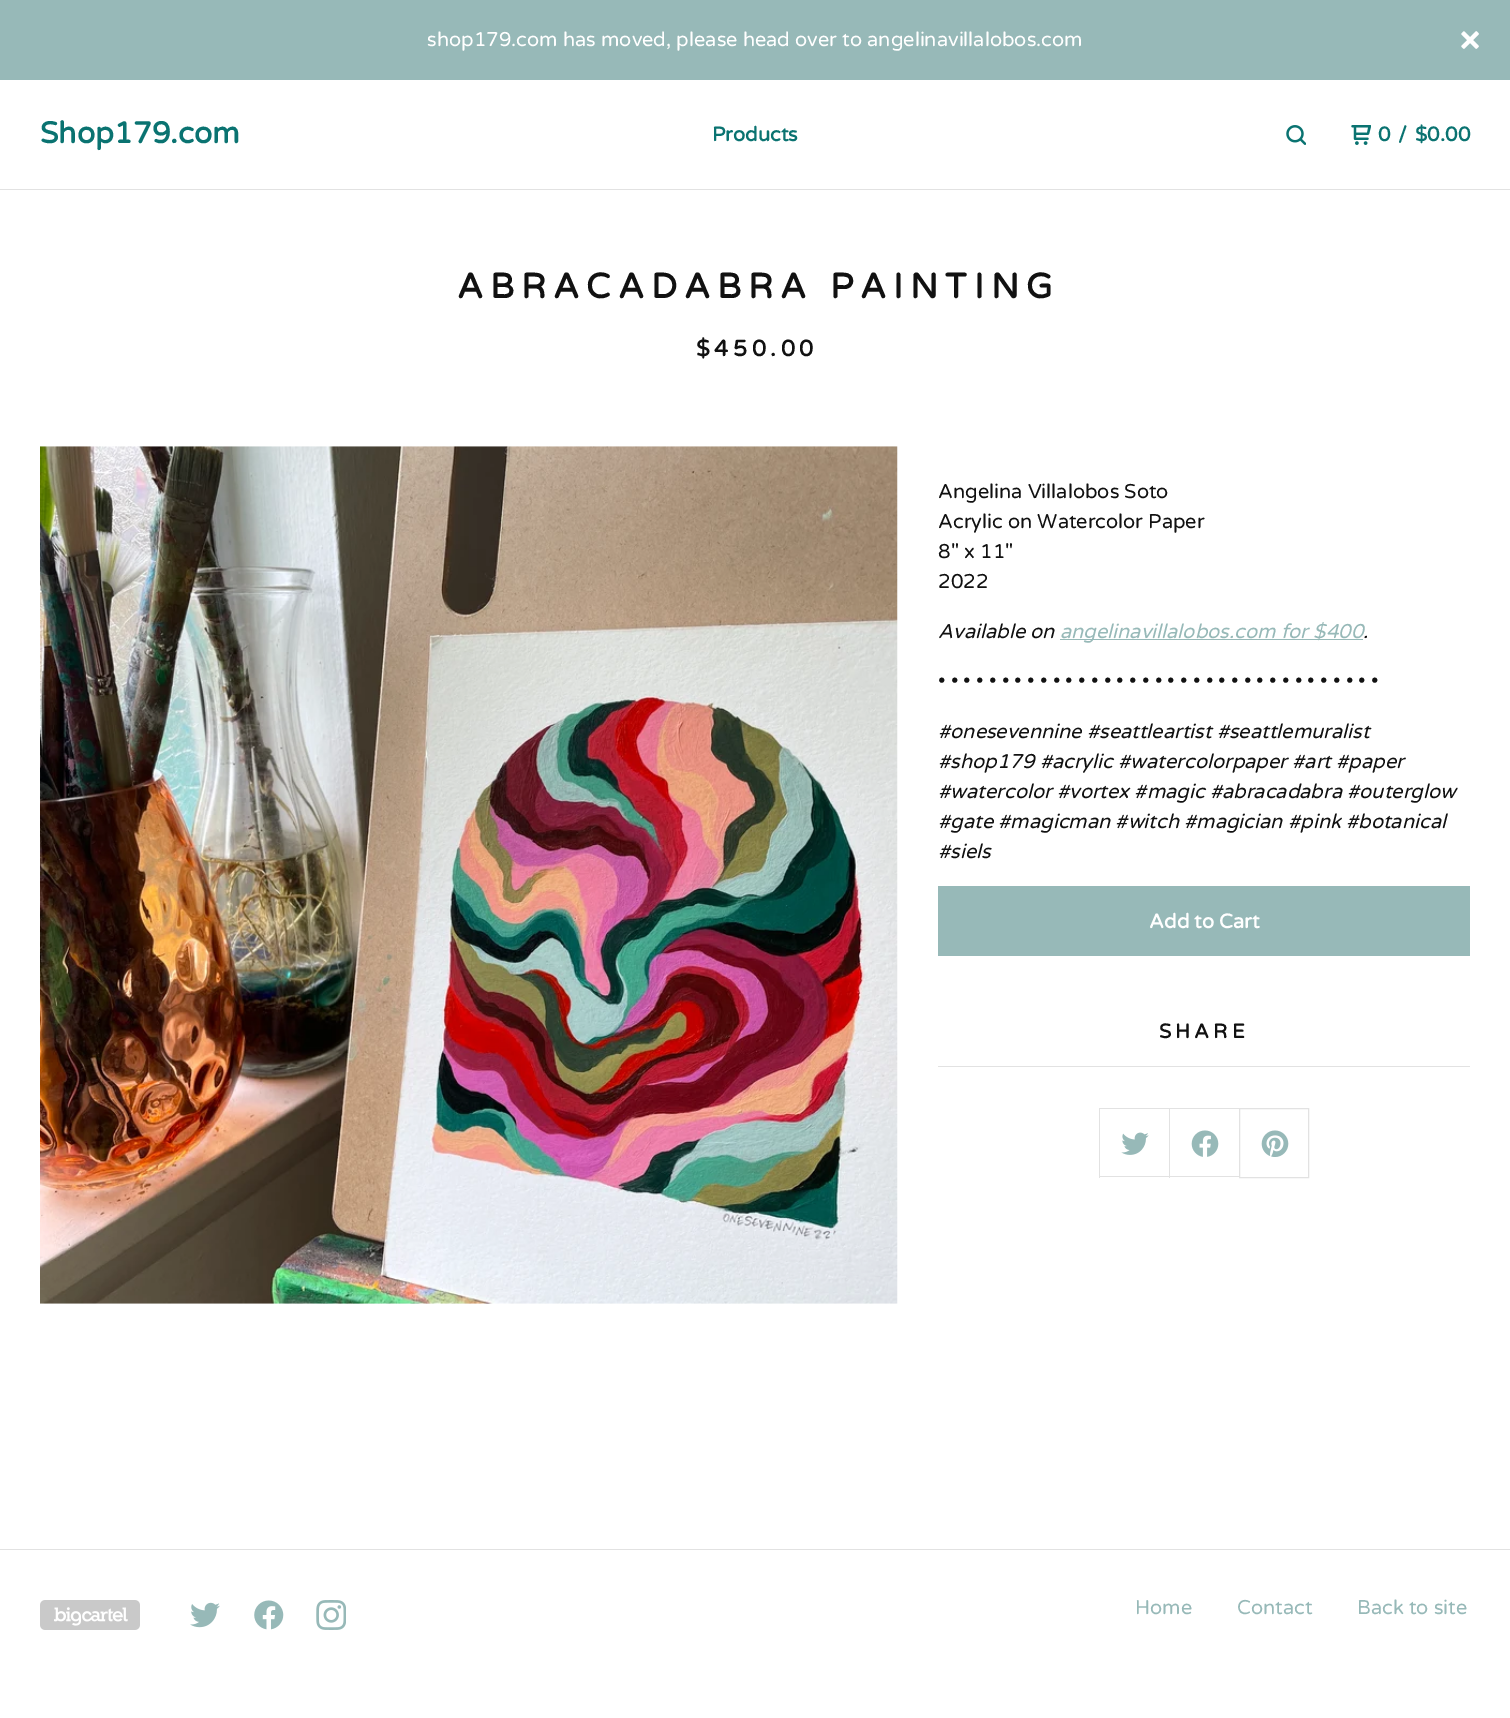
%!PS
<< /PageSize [1510 1718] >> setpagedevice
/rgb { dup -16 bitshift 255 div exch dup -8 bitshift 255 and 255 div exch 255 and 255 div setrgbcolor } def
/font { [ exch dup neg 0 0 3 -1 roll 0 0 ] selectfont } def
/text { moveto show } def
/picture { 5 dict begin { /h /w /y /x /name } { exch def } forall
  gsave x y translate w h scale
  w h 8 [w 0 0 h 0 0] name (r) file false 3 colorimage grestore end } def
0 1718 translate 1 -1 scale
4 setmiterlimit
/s1 { /VarelaRound-Regular 20 font 16#FFFFFF rgb } def
/s2 { /VarelaRound-Bold 30 font 16#0A7371 rgb } def
/s3 { /VarelaRound-Bold 20 font 16#0A7371 rgb } def
/s4 { /VarelaRound-Regular 20 font 16#111111 rgb } def
/s5 { /VarelaRound-Italic 20 font 16#111111 rgb } def
/s6 { /VarelaRound-Italic 20 font 16#97B9B8 rgb } def
/s7 { /VarelaRound-Bold 20 font 16#FFFFFF rgb } def
/s8 { /VarelaRound-Regular 20 font 16#97B9B8 rgb } def
16#FFFFFF rgb
0 0 1510 1718 rectfill
16#97B9B8 rgb
0 0 1510 80 rectfill
s1
(shop179.com has moved, please head over to angelinavillalobos.com) 427 46 text
(pic1.raw) 1461 31 18 18 picture
16#E2E2E2 rgb
0 189 1510 1 rectfill
s2
(Shop179.com) 40 143 text
s3
(Products) 712 141 text
(pic2.raw) 1286 125 20 20 picture
(pic3.raw) 1351 125 20 20 picture
(0) 1378 141 text
(/) 1398 141 text
($0.00) 1415 141 text
/VarelaRound-Bold 35 font
16#111111 rgb
457 298 moveto 7 0 (ABRACADABRA PAINTING) ashow
/VarelaRound-Bold 22.5 font
696 356 moveto 4.5 0 ($450.00) ashow
(pic4.raw) 40 446 858 858 picture
s4
(Angelina Villalobos Soto) 938 498 text
(Acrylic on Watercolor Paper) 938 528 text
(8" x 11") 938 558 text
(2022) 938 588 text
s5
(Available on) 938 638 text
16#97B9B8 rgb
1060 639 303 1 rectfill
(angelinavillalobos.com for $400) 1060 638 text
s5
(.) 1363 638 text
s4
(• • • • • • • • • • • • • • • • • • • • • • • • • • • • • • • • • • •) 938 688 text
s5
(#onesevennine #seattleartist #seattlemuralist) 938 738 text
(#shop179 #acrylic #watercolorpaper #art #paper) 938 768 text
(#watercolor #vortex #magic #abracadabra #outerglow) 938 798 text
(#gate #magicman #witch #magician #pink #botanical) 938 828 text
(#siels) 938 858 text
16#97B9B8 rgb
938 886 532 70 rectfill
s7
(Add to Cart) 1149 928 text
16#E2E2E2 rgb
938 1066 532 1 rectfill
16#111111 rgb
1159 1038 moveto 4 0 (SHARE) ashow
16#E2E2E2 rgb
1099 1108 140 1 rectfill
1099 1176 140 1 rectfill
1099 1108 1 70 rectfill
(pic5.raw) 1121 1132 28 23 picture
1169 1108 1 70 rectfill
(pic6.raw) 1191 1130 28 27 picture
1239.5 1108.5 69 69 rectstroke
(pic7.raw) 1261 1130 28 27 picture
0 1549 1510 1 rectfill
(pic8.raw) 40 1600 100 30 picture
(pic9.raw) 190 1602 30 26 picture
(pic10.raw) 254 1600 30 30 picture
(pic11.raw) 316 1600 30 30 picture
s8
(Home) 1135 1614 text
(Contact) 1237 1614 text
(Back to site) 1357 1614 text
showpage
